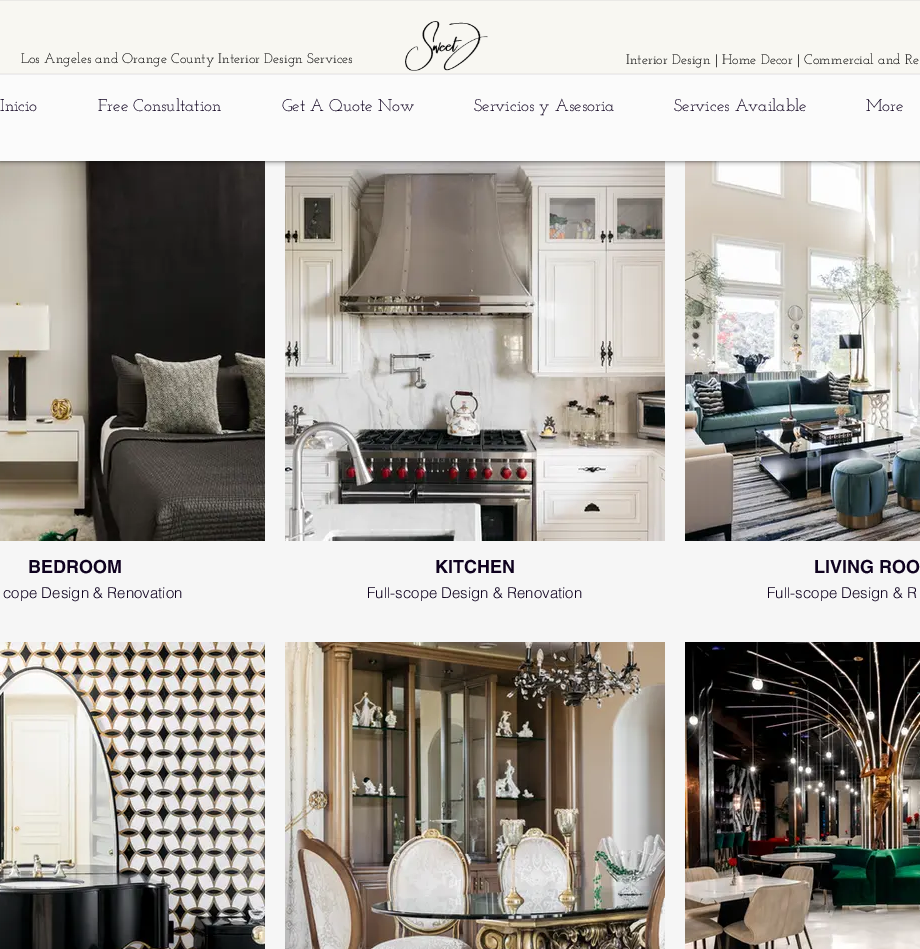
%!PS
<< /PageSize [920 949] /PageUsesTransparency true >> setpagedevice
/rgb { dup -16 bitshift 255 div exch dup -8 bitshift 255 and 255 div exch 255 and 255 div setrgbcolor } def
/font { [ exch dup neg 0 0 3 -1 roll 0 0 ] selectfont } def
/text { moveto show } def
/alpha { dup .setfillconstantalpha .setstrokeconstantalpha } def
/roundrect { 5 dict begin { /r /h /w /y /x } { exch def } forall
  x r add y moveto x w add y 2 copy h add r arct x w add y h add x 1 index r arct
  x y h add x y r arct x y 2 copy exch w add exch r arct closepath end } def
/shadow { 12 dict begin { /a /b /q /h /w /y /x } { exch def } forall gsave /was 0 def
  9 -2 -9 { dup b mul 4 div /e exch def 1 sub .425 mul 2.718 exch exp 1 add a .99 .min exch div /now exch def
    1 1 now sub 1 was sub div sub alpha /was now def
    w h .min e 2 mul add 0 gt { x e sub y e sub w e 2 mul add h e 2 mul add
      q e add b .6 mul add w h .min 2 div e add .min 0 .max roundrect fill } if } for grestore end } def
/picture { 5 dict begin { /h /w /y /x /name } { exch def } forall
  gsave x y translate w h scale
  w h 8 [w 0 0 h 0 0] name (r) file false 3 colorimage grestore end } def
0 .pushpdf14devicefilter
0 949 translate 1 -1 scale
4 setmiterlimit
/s1 { /JosefinSlab-Regular 14 font 16#000000 rgb } def
/s2 { /JosefinSlab-Regular 17 font 16#0F021F rgb } def
/s3 { /helvetica-Bold 18 font 16#0F021F rgb } def
/s4 { /helvetica-Light 15 font 16#0F021F rgb } def
16#F6F6F6 rgb
0 0 920 949 rectfill
(pic2.raw) 0 161 265 380 picture
(pic3.raw) 285 161 380 380 picture
(pic4.raw) 685 161 235 380 picture
16#000000 rgb
0 0 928 161 0 2.5 0.7 shadow
16#FBFBFB rgb
0 74 920 87 rectfill
16#F8F7F2 rgb
0 0 920 74 rectfill
0.08 alpha
16#0F021F rgb
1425 0 moveto 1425 74 lineto -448 74 lineto -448 0 lineto closepath stroke
1 alpha
s1
(Los Angeles and Orange County Interior Design Services) 21 63 text
(pic1.raw) 405 21 83 50 picture
(Interior Design | Home Decor | Commercial and Re) 626 64 text
s2
(Inicio) 0 111 text
(Free Consultation) 98 111 text
(Get A Quote Now) 282 111 text
(Servicios y Asesoria) 474 111 text
(Services Available) 674 111 text
(More) 866 111 text
s3
(BEDROOM) 28 573 text
s4
(cope Design & Renovation) 3 598 text
s3
(KITCHEN) 435 573 text
s4
(Full-scope Design & Renovation) 367 598 text
s3
(LIVING ROO) 814 573 text
s4
(Full-scope Design & R) 767 598 text
(pic5.raw) 0 642 265 307 picture
(pic6.raw) 285 642 380 307 picture
(pic7.raw) 685 642 235 307 picture
.poppdf14devicefilter showpage
